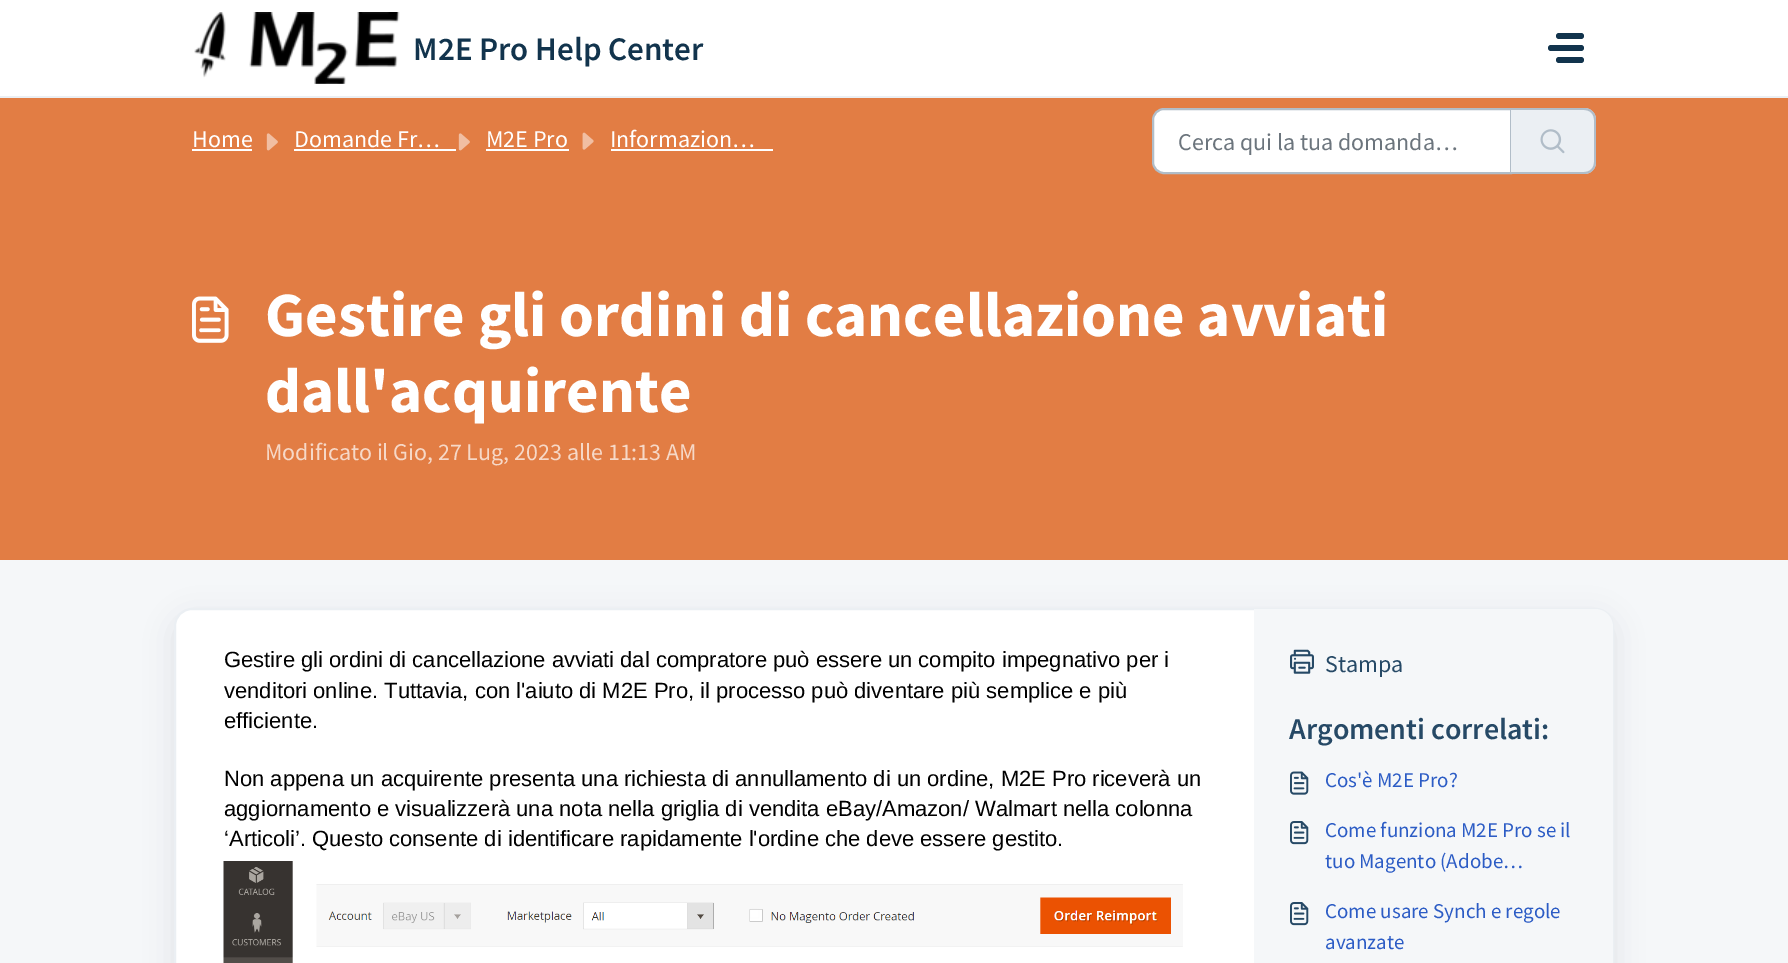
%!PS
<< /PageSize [1788 963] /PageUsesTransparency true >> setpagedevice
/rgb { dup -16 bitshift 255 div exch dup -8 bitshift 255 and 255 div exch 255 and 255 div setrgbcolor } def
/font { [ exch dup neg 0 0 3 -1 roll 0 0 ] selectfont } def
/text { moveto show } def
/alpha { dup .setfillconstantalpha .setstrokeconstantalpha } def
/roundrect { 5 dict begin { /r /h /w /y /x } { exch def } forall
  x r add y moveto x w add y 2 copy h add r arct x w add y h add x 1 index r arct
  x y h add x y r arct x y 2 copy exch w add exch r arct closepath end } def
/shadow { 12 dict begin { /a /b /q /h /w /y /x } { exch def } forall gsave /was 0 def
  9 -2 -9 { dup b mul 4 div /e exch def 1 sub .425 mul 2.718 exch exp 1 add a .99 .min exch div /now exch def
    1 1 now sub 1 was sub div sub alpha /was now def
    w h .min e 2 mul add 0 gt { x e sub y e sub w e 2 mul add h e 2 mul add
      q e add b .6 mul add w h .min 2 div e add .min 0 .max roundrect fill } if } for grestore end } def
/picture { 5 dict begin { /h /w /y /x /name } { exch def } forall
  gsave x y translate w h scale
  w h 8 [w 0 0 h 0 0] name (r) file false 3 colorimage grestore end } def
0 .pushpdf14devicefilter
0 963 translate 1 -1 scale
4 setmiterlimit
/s1 { /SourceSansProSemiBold-SemiBold 33 font 16#12344D rgb } def
/s2 { /SourceSansPro-Regular 24 font 16#FFFFFF rgb } def
/s3 { /SourceSansPro-Regular 24 font 16#6C757D rgb } def
/s4 { /SourceSansPro-Bold 63 font 16#FFFFFF rgb } def
/s5 { /SourceSansPro-Regular 24 font 16#F6D8C7 rgb } def
/s6 { /LiberationSans-Regular 22 font 16#000000 rgb } def
/s7 { /SourceSansPro-Regular 24 font 16#264966 rgb } def
/s8 { /SourceSansProSemiBold-SemiBold 30 font 16#264966 rgb } def
/s9 { /SourceSansPro-Regular 21 font 16#2C5CC5 rgb } def
16#F5F7F9 rgb
0 0 1788 963 rectfill
16#FFFFFF rgb
0 0 1788 96 rectfill
16#EBEFF3 rgb
0 96 1788 2 rectfill
(pic1.raw) 194 12 206 72 picture
s1
(M2E Pro Help Center) 413 60 text
1556 33 28 6 3 roundrect fill
1548 45 36 6 3 roundrect fill
1556 57 28 6 3 roundrect fill
16#E27D44 rgb
0 98 1788 462 rectfill
s2
(Home) 192 147 text
192 149 60 2 rectfill
(pic2.raw) 266 133 12 18 picture
(Domande Fr…) 294 147 text
294 149 162 2 rectfill
(pic2.raw) 458 133 12 18 picture
(M2E Pro) 486 147 text
486 149 83 2 rectfill
(pic3.raw) 582 132 12 18 picture
(Informazion…) 610 147 text
611 149 162 2 rectfill
1164 109 moveto 1511 109 lineto 1511 173 lineto 1164 173 lineto 1158 173 1153 168 1153 162 curveto 1153 120 lineto 1153 114 1158 109 1164 109 curveto closepath gsave fill grestore
16#B1BDC8 rgb
2 setlinewidth
stroke
s3
(Cerca qui la tua domanda…) 1178 150 text
16#EBEFF3 rgb
1511 108 moveto 1584 108 lineto 1590.5 108 1596 113.5 1596 120 curveto 1596 162 lineto 1596 168.5 1590.5 174 1584 174 curveto 1511 174 lineto closepath fill
16#B1BDC8 rgb
1510 108 moveto 1584 108 lineto 1591 108 1596 113 1596 120 curveto 1596 162 lineto 1596 169 1591 174 1584 174 curveto 1510 174 lineto closepath 1510 110 moveto 1584 110 lineto 1590 110 1594 114 1594 120 curveto 1594 162 lineto 1594 168 1590 172 1584 172 curveto 1510 172 lineto closepath eofill
(pic4.raw) 1540 129 25 25 picture
(pic5.raw) 192 296 37 47 picture
s4
(Gestire gli ordini di cancellazione avviati) 265 336 text
(dall'acquirente) 265 412 text
s5
(Modificato il Gio, 27 Lug, 2023 alle 11:13 AM) 265 460 text
16#27313A rgb
174 617 1440 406 18 14 0.1 shadow
16#FFFFFF rgb
175 609 1438 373 17 roundrect gsave fill grestore
16#EBEFF3 rgb
stroke
s6
(Gestire gli ordini di cancellazione avviati dal compratore può essere un compito impegnativo per i) 224 667 text
(venditori online. Tuttavia, con l'aiuto di M2E Pro, il processo può diventare più semplice e più) 224 698 text
(efficiente.) 224 728 text
(Non appena un acquirente presenta una richiesta di annullamento di un ordine, M2E Pro riceverà un) 224 786 text
(aggiornamento e visualizzerà una nota nella griglia di vendita eBay/Amazon/ Walmart nella colonna) 224 816 text
(‘Articoli’. Questo consente di identificare rapidamente l'ordine che deve essere gestito.) 224 846 text
(pic6.raw) 223 861 960 102 picture
16#F5F7F9 rgb
1254 609 moveto 1595 609 lineto 1605 609 1613 617 1613 627 curveto 1613 963 lineto 1613 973 1605 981 1595 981 curveto 1254 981 lineto closepath fill
(pic7.raw) 1290 649 24 25 picture
s7
(Stampa) 1325 672 text
s8
(Argomenti correlati:) 1289 739 text
(pic8.raw) 1290 771 19 24 picture
s9
(Cos'è M2E Pro?) 1325 787 text
(pic9.raw) 1290 821 19 24 picture
(Come funziona M2E Pro se il) 1325 837 text
(tuo Magento \(Adobe…) 1325 868 text
(pic9.raw) 1290 902 19 24 picture
(Come usare Synch e regole) 1325 918 text
(avanzate) 1325 949 text
.poppdf14devicefilter showpage
